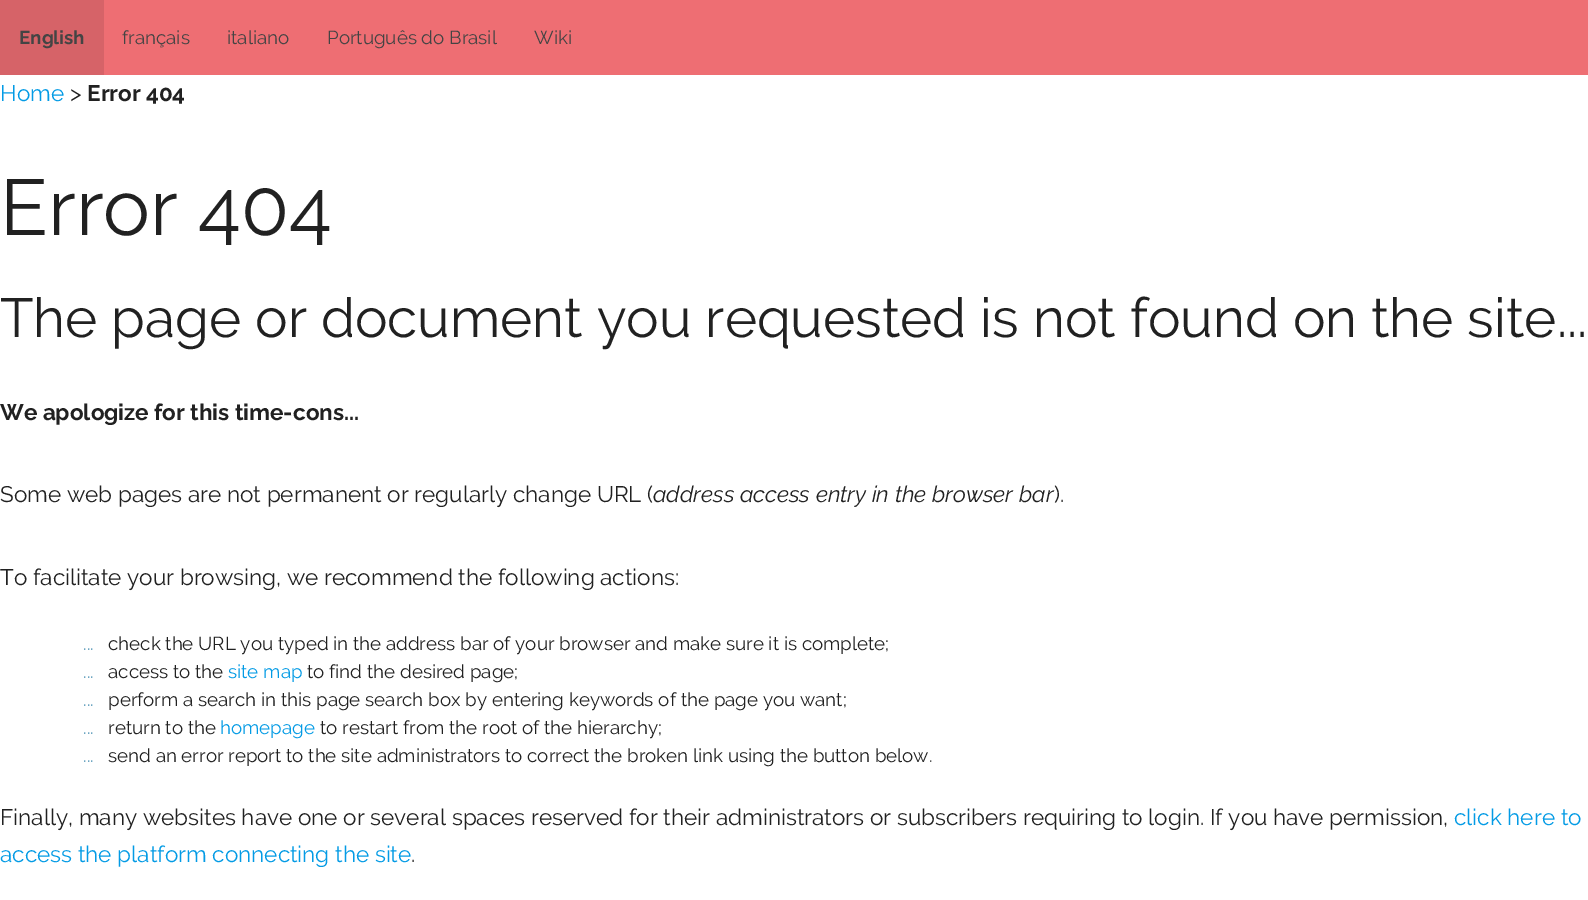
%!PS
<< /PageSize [1588 900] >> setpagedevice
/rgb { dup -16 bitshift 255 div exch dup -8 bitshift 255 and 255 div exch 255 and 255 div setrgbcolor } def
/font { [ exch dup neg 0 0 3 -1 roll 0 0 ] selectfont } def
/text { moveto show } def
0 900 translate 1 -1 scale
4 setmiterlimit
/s1 { /Raleway-Bold 18.75 font 16#444444 rgb } def
/s2 { /Raleway-Regular 18.75 font 16#444444 rgb } def
/s3 { /Raleway-Regular 22.5 font 16#039BE5 rgb } def
/s4 { /Raleway-Regular 22.5 font 16#212121 rgb } def
/s5 { /Raleway-Bold 22.5 font 16#212121 rgb } def
/s6 { /Raleway-Regular 78.75 font 16#212121 rgb } def
/s7 { /Raleway-Regular 54.75 font 16#212121 rgb } def
/s8 { /Raleway-Italic 22.5 font 16#212121 rgb } def
/s9 { /Raleway-Regular 18.75 font 16#3886AC rgb } def
/s10 { /Raleway-Regular 18.75 font 16#212121 rgb } def
/s11 { /Raleway-Regular 18.75 font 16#039BE5 rgb } def
16#FFFFFF rgb
0 0 1588 900 rectfill
16#EE6E73 rgb
104 0 1484 75 rectfill
16#D66368 rgb
0 0 104 75 rectfill
s1
(English) 19 44 text
s2
(français) 122 44 text
(italiano) 227 44 text
(Português do Brasil) 327 44 text
(Wiki) 534 44 text
s3
(Home) 0 101 text
s4
(>) 70 101 text
s5
(Error 404) 87 101 text
s6
(Error 404) 0 235 text
s7
(The page or document you requested is not found on the site...) 0 337 text
s5
(We apologize for this time-cons...) 0 420 text
s4
(Some web pages are not permanent or regularly change URL \() 0 502 text
s8
(address access entry in the browser bar) 653 502 text
s4
(\).) 1054 502 text
(To facilitate your browsing, we recommend the following actions:) 0 585 text
s9
(...) 83 650 text
s10
(check the URL you typed in the address bar of your browser and make sure it is complete;) 108 650 text
s9
(...) 83 678 text
s10
(access to the) 108 678 text
s11
(site map) 228 678 text
s10
(to find the desired page;) 307 678 text
s9
(...) 83 706 text
s10
(perform a search in this page search box by entering keywords of the page you want;) 108 706 text
s9
(...) 83 734 text
s10
(return to the) 108 734 text
s11
(homepage) 220 734 text
s10
(to restart from the root of the hierarchy;) 320 734 text
s9
(...) 83 762 text
s10
(send an error report to the site administrators to correct the broken link using the button below.) 108 762 text
s4
(Finally, many websites have one or several spaces reserved for their administrators or subscribers requiring to login. If you have permission,) 0 825 text
s3
(click here to) 1454 825 text
(access the platform connecting the site) 0 862 text
s4
(.) 411 862 text
showpage
